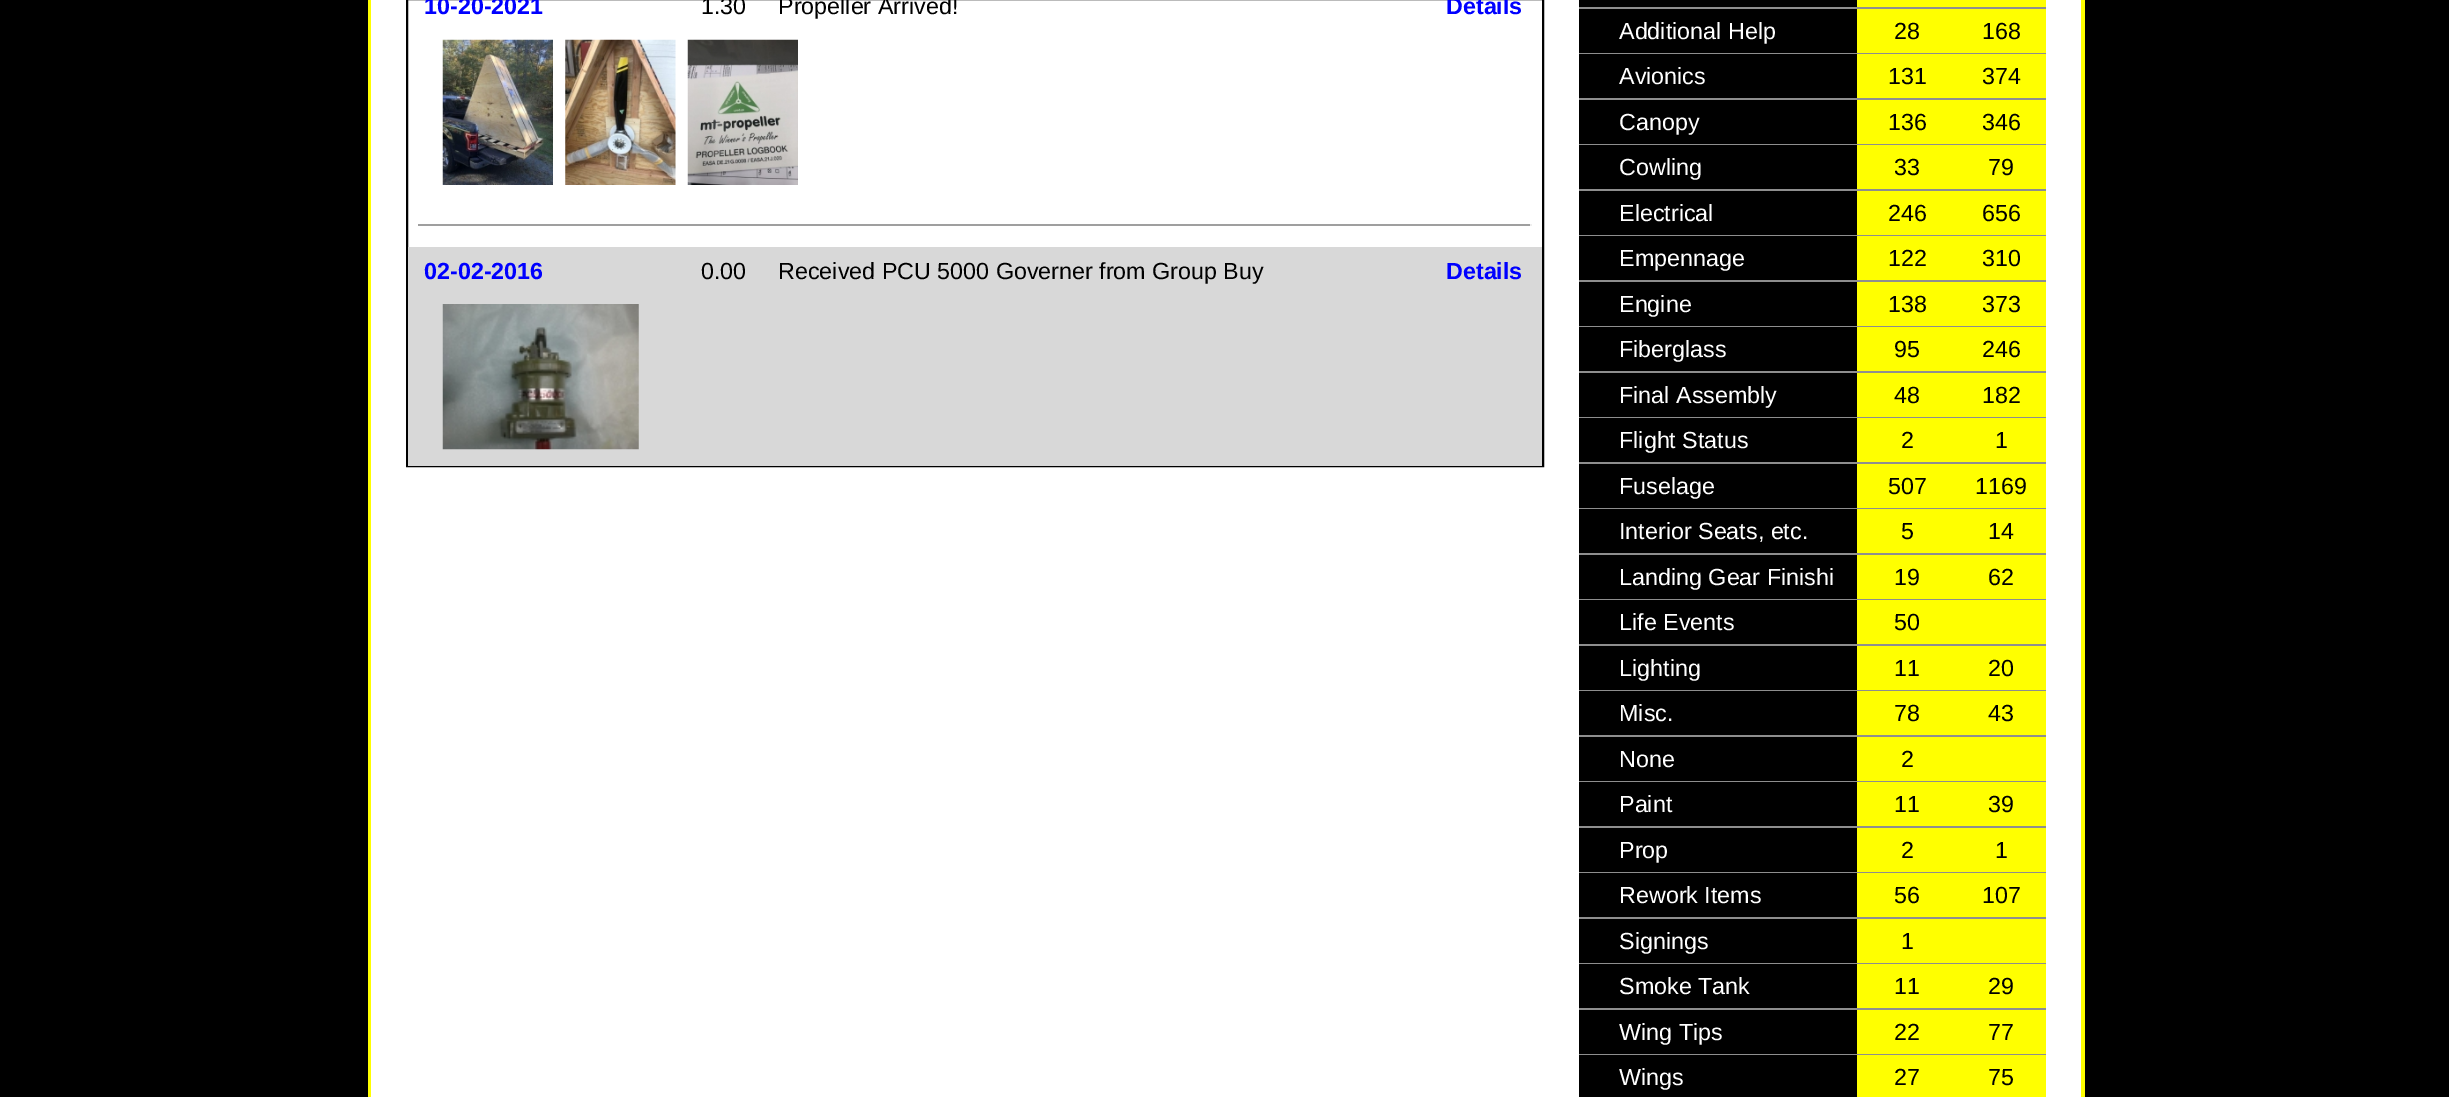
%!PS
<< /PageSize [2449 1097] >> setpagedevice
/rgb { dup -16 bitshift 255 div exch dup -8 bitshift 255 and 255 div exch 255 and 255 div setrgbcolor } def
/font { [ exch dup neg 0 0 3 -1 roll 0 0 ] selectfont } def
/text { moveto show } def
/picture { 5 dict begin { /h /w /y /x /name } { exch def } forall
  gsave x y translate w h scale
  w h 8 [w 0 0 h 0 0] name (r) file false 3 colorimage grestore end } def
0 1097 translate 1 -1 scale
4 setmiterlimit
/s1 { /LiberationSans-Bold 23.3 font 16#0000FF rgb } def
/s2 { /LiberationSans-Regular 23.3 font 16#000000 rgb } def
/s3 { /LiberationSans-Regular 23.3 font 16#FFFFFF rgb } def
16#000000 rgb
0 0 2449 1097 rectfill
16#FFFF00 rgb
368 0 3 1097 rectfill
16#FFFFFF rgb
371 0 1710 1097 rectfill
16#000000 rgb
2 setlinewidth
407 -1 1136 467 rectstroke
s1
(10-20-2021) 424 14 text
s2
(1.30) 701 14 text
(Propeller Arrived!) 778 14 text
s1
(Details) 1446 14 text
(pic1.raw) 442 39 111 146 picture
(pic2.raw) 565 39 111 146 picture
(pic3.raw) 687 39 111 146 picture
16#9F9F9F rgb
418 224 1113 2 rectfill
16#EEEEEE rgb
1530 224 2 2 rectfill
16#D8D8D8 rgb
408 247 1134 219 rectfill
s1
(02-02-2016) 424 279 text
s2
(0.00) 701 279 text
(Received PCU 5000 Governer from Group Buy) 778 279 text
s1
(Details) 1446 279 text
(pic4.raw) 442 304 197 146 picture
16#000000 rgb
1579 0 278 7 rectfill
16#FFFF00 rgb
1857 0 189 7 rectfill
16#8E8E8E rgb
1579 7 467 2 rectfill
16#000000 rgb
1579 9 278 44 rectfill
s3
(Additional Help) 1619 39 text
16#FFFF00 rgb
1857 9 189 44 rectfill
s2
(28) 1894 39 text
(168) 1982 39 text
16#8E8E8E rgb
1579 53 467 1 rectfill
16#000000 rgb
1579 54 278 44 rectfill
s3
(Avionics) 1619 84 text
16#FFFF00 rgb
1857 54 189 44 rectfill
s2
(131) 1888 84 text
(374) 1982 84 text
16#8E8E8E rgb
1579 98 467 2 rectfill
16#000000 rgb
1579 100 278 44 rectfill
s3
(Canopy) 1619 130 text
16#FFFF00 rgb
1857 100 189 44 rectfill
s2
(136) 1888 130 text
(346) 1982 130 text
16#8E8E8E rgb
1579 144 467 1 rectfill
16#000000 rgb
1579 145 278 44 rectfill
s3
(Cowling) 1619 175 text
16#FFFF00 rgb
1857 145 189 44 rectfill
s2
(33) 1894 175 text
(79) 1988 175 text
16#8E8E8E rgb
1579 189 467 2 rectfill
16#000000 rgb
1579 191 278 44 rectfill
s3
(Electrical) 1619 221 text
16#FFFF00 rgb
1857 191 189 44 rectfill
s2
(246) 1888 221 text
(656) 1982 221 text
16#8E8E8E rgb
1579 235 467 1 rectfill
16#000000 rgb
1579 236 278 44 rectfill
s3
(Empennage) 1619 266 text
16#FFFF00 rgb
1857 236 189 44 rectfill
s2
(122) 1888 266 text
(310) 1982 266 text
16#8E8E8E rgb
1579 280 467 2 rectfill
16#000000 rgb
1579 282 278 44 rectfill
s3
(Engine) 1619 312 text
16#FFFF00 rgb
1857 282 189 44 rectfill
s2
(138) 1888 312 text
(373) 1982 312 text
16#8E8E8E rgb
1579 326 467 1 rectfill
16#000000 rgb
1579 327 278 44 rectfill
s3
(Fiberglass) 1619 357 text
16#FFFF00 rgb
1857 327 189 44 rectfill
s2
(95) 1894 357 text
(246) 1982 357 text
16#8E8E8E rgb
1579 371 467 2 rectfill
16#000000 rgb
1579 373 278 44 rectfill
s3
(Final Assembly) 1619 403 text
16#FFFF00 rgb
1857 373 189 44 rectfill
s2
(48) 1894 403 text
(182) 1982 403 text
16#8E8E8E rgb
1579 417 467 1 rectfill
16#000000 rgb
1579 418 278 44 rectfill
s3
(Flight Status) 1619 448 text
16#FFFF00 rgb
1857 418 189 44 rectfill
s2
(2) 1901 448 text
(1) 1995 448 text
16#8E8E8E rgb
1579 462 467 2 rectfill
16#000000 rgb
1579 464 278 44 rectfill
s3
(Fuselage) 1619 494 text
16#FFFF00 rgb
1857 464 189 44 rectfill
s2
(507) 1888 494 text
(1169) 1975 494 text
16#8E8E8E rgb
1579 508 467 1 rectfill
16#000000 rgb
1579 509 278 44 rectfill
s3
(Interior Seats, etc.) 1619 539 text
16#FFFF00 rgb
1857 509 189 44 rectfill
s2
(5) 1901 539 text
(14) 1988 539 text
16#8E8E8E rgb
1579 553 467 2 rectfill
16#000000 rgb
1579 555 278 44 rectfill
s3
(Landing Gear Finishi) 1619 585 text
16#FFFF00 rgb
1857 555 189 44 rectfill
s2
(19) 1894 585 text
(62) 1988 585 text
16#8E8E8E rgb
1579 599 467 1 rectfill
16#000000 rgb
1579 600 278 44 rectfill
s3
(Life Events) 1619 630 text
16#FFFF00 rgb
1857 600 189 44 rectfill
s2
(50) 1894 630 text
16#8E8E8E rgb
1579 644 467 2 rectfill
16#000000 rgb
1579 646 278 44 rectfill
s3
(Lighting) 1619 676 text
16#FFFF00 rgb
1857 646 189 44 rectfill
s2
(11) 1894 676 text
(20) 1988 676 text
16#8E8E8E rgb
1579 690 467 1 rectfill
16#000000 rgb
1579 691 278 44 rectfill
s3
(Misc.) 1619 721 text
16#FFFF00 rgb
1857 691 189 44 rectfill
s2
(78) 1894 721 text
(43) 1988 721 text
16#8E8E8E rgb
1579 735 467 2 rectfill
16#000000 rgb
1579 737 278 44 rectfill
s3
(None) 1619 767 text
16#FFFF00 rgb
1857 737 189 44 rectfill
s2
(2) 1901 767 text
16#8E8E8E rgb
1579 781 467 1 rectfill
16#000000 rgb
1579 782 278 44 rectfill
s3
(Paint) 1619 812 text
16#FFFF00 rgb
1857 782 189 44 rectfill
s2
(11) 1894 812 text
(39) 1988 812 text
16#8E8E8E rgb
1579 826 467 2 rectfill
16#000000 rgb
1579 828 278 44 rectfill
s3
(Prop) 1619 858 text
16#FFFF00 rgb
1857 828 189 44 rectfill
s2
(2) 1901 858 text
(1) 1995 858 text
16#8E8E8E rgb
1579 872 467 1 rectfill
16#000000 rgb
1579 873 278 44 rectfill
s3
(Rework Items) 1619 903 text
16#FFFF00 rgb
1857 873 189 44 rectfill
s2
(56) 1894 903 text
(107) 1982 903 text
16#8E8E8E rgb
1579 917 467 2 rectfill
16#000000 rgb
1579 919 278 44 rectfill
s3
(Signings) 1619 949 text
16#FFFF00 rgb
1857 919 189 44 rectfill
s2
(1) 1901 949 text
16#8E8E8E rgb
1579 963 467 1 rectfill
16#000000 rgb
1579 964 278 44 rectfill
s3
(Smoke Tank) 1619 994 text
16#FFFF00 rgb
1857 964 189 44 rectfill
s2
(11) 1894 994 text
(29) 1988 994 text
16#8E8E8E rgb
1579 1008 467 2 rectfill
16#000000 rgb
1579 1010 278 44 rectfill
s3
(Wing Tips) 1619 1040 text
16#FFFF00 rgb
1857 1010 189 44 rectfill
s2
(22) 1894 1040 text
(77) 1988 1040 text
16#8E8E8E rgb
1579 1054 467 1 rectfill
16#000000 rgb
1579 1055 278 42 rectfill
s3
(Wings) 1619 1085 text
16#FFFF00 rgb
1857 1055 189 42 rectfill
s2
(27) 1894 1085 text
(75) 1988 1085 text
16#FFFF00 rgb
2081 0 4 1097 rectfill
showpage
